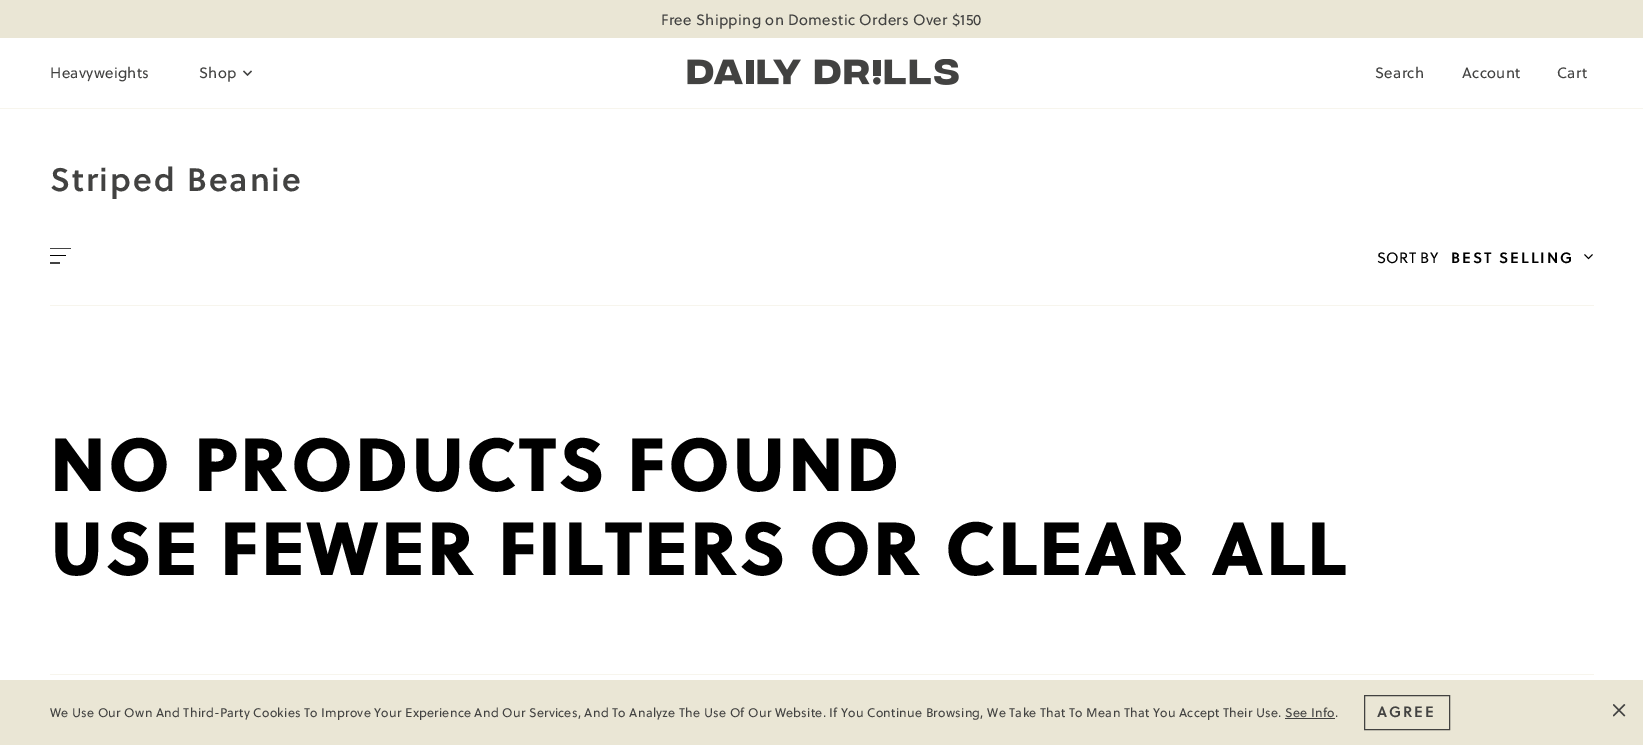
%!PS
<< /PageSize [1643 745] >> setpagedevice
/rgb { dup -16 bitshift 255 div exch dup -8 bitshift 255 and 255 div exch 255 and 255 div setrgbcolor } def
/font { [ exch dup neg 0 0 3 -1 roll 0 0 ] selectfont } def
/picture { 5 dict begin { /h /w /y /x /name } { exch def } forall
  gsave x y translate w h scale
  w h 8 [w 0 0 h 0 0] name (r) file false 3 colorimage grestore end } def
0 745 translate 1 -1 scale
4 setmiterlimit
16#FFFFFF rgb
0 0 1643 745 rectfill
16#EAE6D5 rgb
0 0 1643 38 rectfill
/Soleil-Regular 15 font
16#424241 rgb
661 25 moveto 0.3 0 (Free Shipping on Domestic Orders Over $150) ashow
16#F7F5ED rgb
0 108 1643 1 rectfill
16#424241 rgb
50 78 moveto 0.3 0 (Heavyweights) ashow
199 78 moveto 0.3 0 (Shop) ashow
1.3 setlinewidth
243.5 71 moveto 247.5 75 lineto 251.5 71 lineto stroke
(pic1.raw) 687 59 272 26 picture
1375 78 moveto 0.3 0 (Search) ashow
1462 78 moveto 0.3 0 (Account) ashow
1557 78 moveto 0.3 0 (Cart) ashow
/Soleil-SemiBold 32.5 font
50 191 moveto 2 0 (Striped Beanie) ashow
16#F7F5ED rgb
50 305 1544 1 rectfill
gsave
50 248 21 16 rectclip
16#000000 rgb
1.2 setlinewidth
50 248 moveto 71 248 lineto stroke
grestore
16#000000 rgb
50 255 16 1 rectfill
1.2 setlinewidth
50 263 moveto 60 263 lineto stroke
/Soleil-Regular 15 font
1377 263 moveto 0.3 0 (SORT BY) ashow
/Soleil-SemiBold 15 font
1451 263 moveto 2 0 (BEST SELLING) ashow
0.8 setlinewidth
1584.5 254.5 moveto 1588.5 258.5 lineto 1592.5 254.5 lineto stroke
/Soleil-ExtraBold 75 font
50 491 moveto 2.25 0 (NO PRODUCTS FOUND) ashow
50 575 moveto 2.25 0 (USE FEWER FILTERS OR CLEAR ALL) ashow
16#F7F5ED rgb
50 674 1544 1 rectfill
16#EAE6D5 rgb
0 680 1643 65 rectfill
/Soleil-Regular 12.5 font
16#424241 rgb
50 717 moveto 0.25 0 (We Use Our Own And Third-Party Cookies To Improve Your Experience And Our Services, And To Analyze The Use Of Our Website. If You Continue Browsing, We Take That To Mean That You Accept Their Use. See Info.) ashow
1285 718 50 1 rectfill
1 setlinewidth
1364.5 695.5 85 34 rectstroke
/Soleil-SemiBold 15 font
1377 717 moveto 2 0 (AGREE) ashow
(pic2.raw) 1613 704 13 13 picture
showpage
